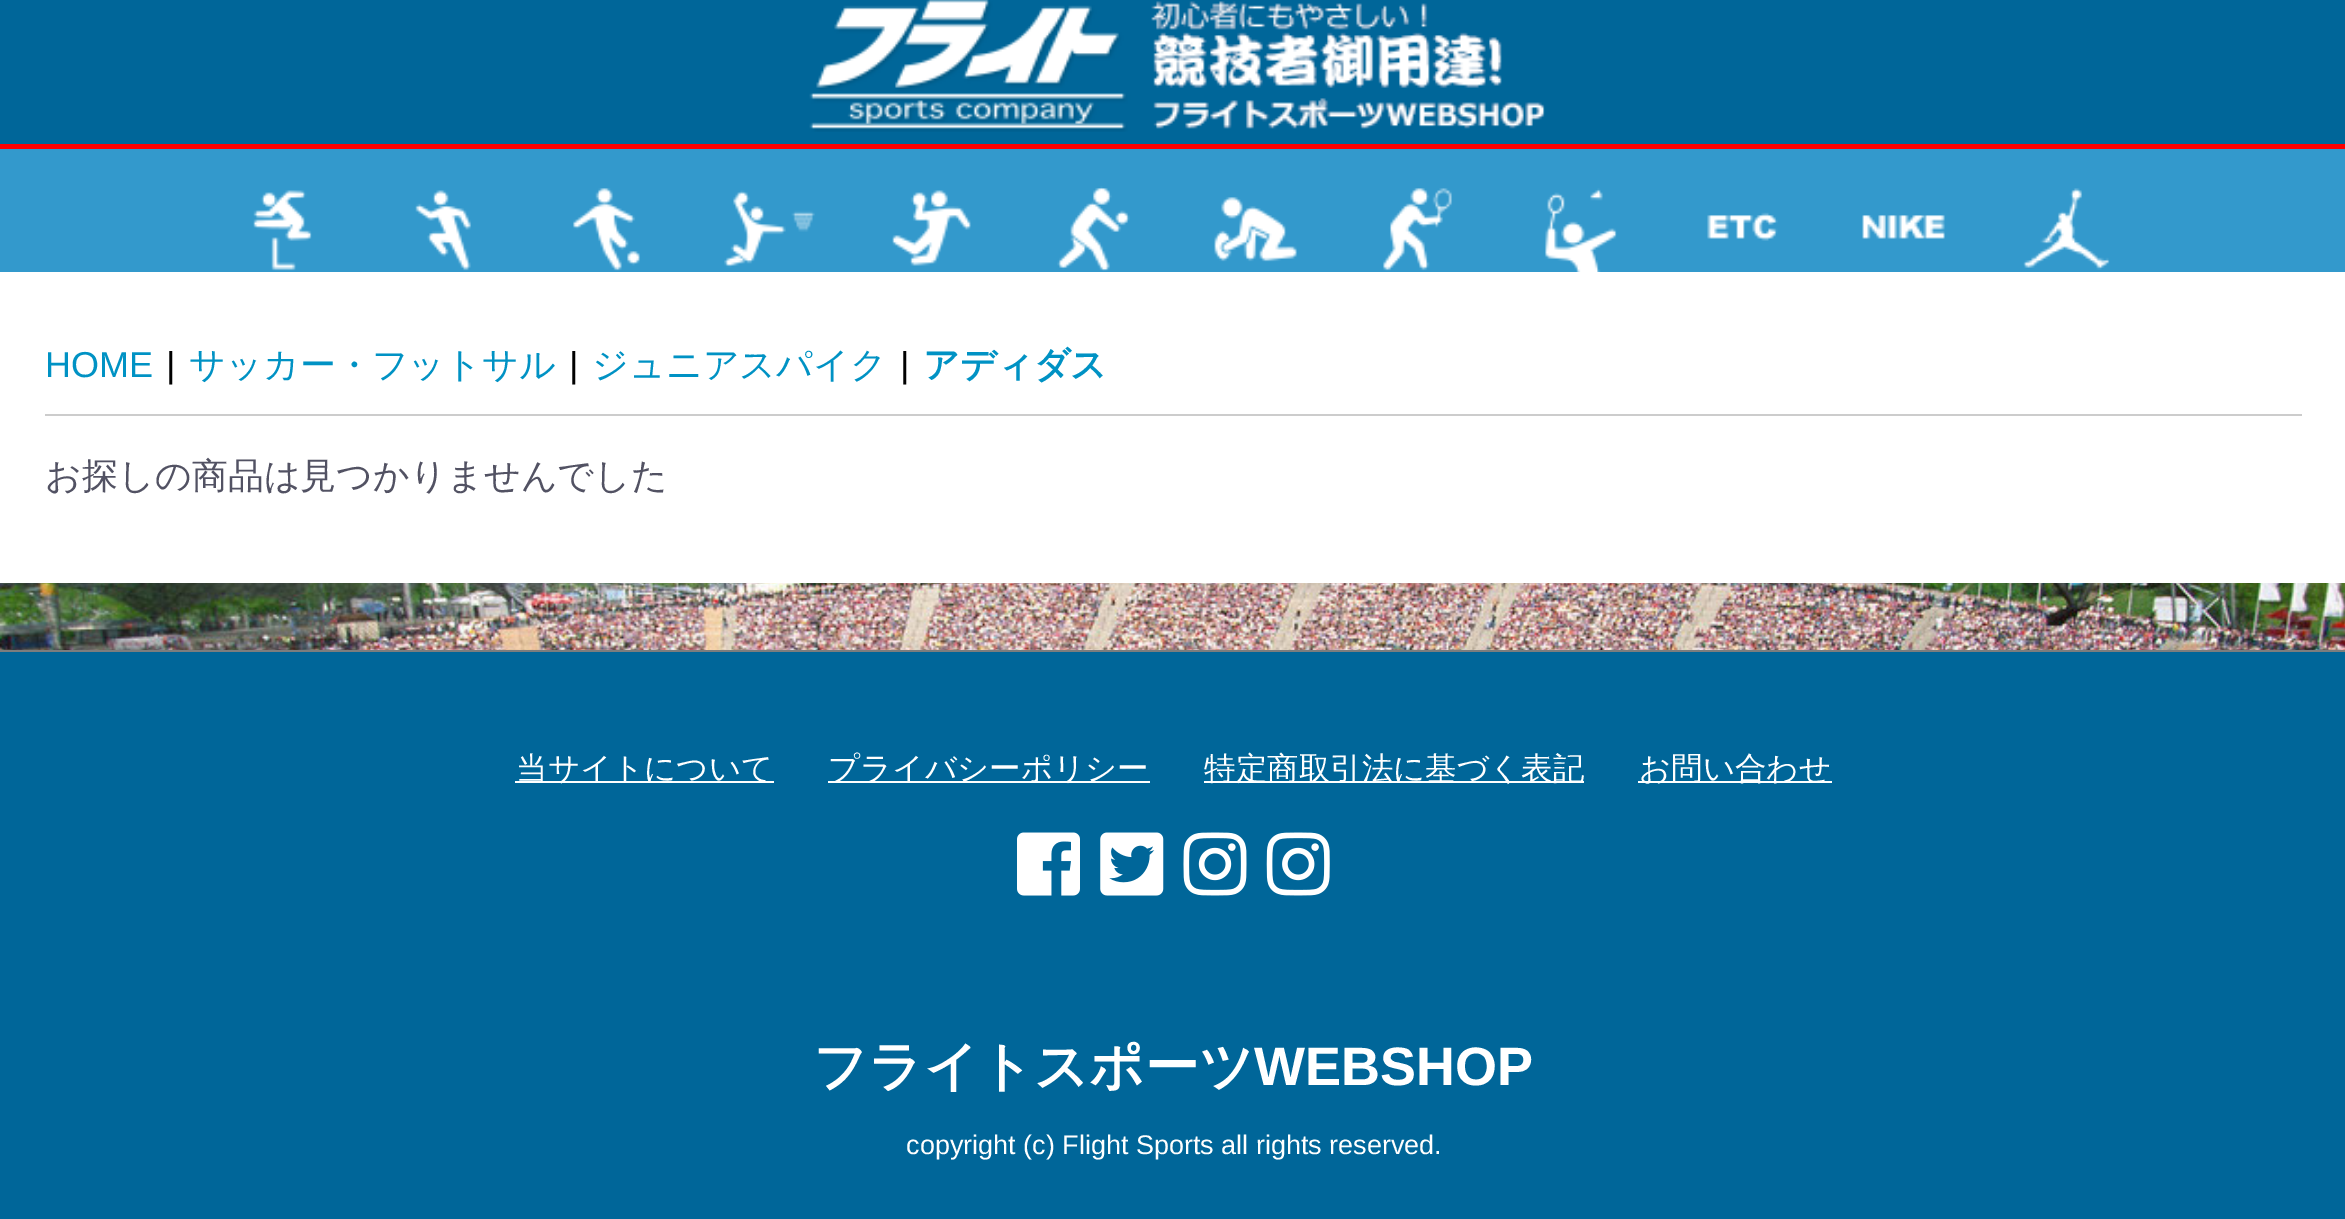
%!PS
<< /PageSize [2345 1219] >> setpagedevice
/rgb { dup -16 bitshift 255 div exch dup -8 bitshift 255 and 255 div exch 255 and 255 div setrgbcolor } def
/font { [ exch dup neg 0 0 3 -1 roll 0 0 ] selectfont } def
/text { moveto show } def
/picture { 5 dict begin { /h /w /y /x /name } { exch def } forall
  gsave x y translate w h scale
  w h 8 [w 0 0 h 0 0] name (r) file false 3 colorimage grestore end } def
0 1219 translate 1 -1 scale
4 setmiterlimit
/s1 { /LiberationSans-Regular 36 font 16#0092C4 rgb } def
/s2 { /LiberationSans-Regular 36 font 16#000000 rgb } def
/s3 { /WenQuanYiZenHei-Medium 36 font 16#0092C4 rgb } def
/s4 { /WenQuanYiZenHei-Bold 36 font 16#0092C4 rgb } def
/s5 { /WenQuanYiZenHei-Medium 36 font 16#525263 rgb } def
/s6 { /WenQuanYiZenHei-Medium 31.5 font 16#FFFFFF rgb } def
/s7 { /WenQuanYiZenHei-Bold 54 font 16#FFFFFF rgb } def
/s8 { /LiberationSans-Bold 54 font 16#FFFFFF rgb } def
/s9 { /LiberationSans-Regular 27 font 16#FFFFFF rgb } def
16#FFFFFF rgb
0 0 2345 1219 rectfill
(pic1.raw) 0 583 2345 67 picture
16#006699 rgb
0 0 2345 144 rectfill
16#FF0000 rgb
0 144 2345 5 rectfill
(pic2.raw) 809 0 736 132 picture
16#3399CC rgb
0 149 2345 123 rectfill
(pic3.raw) 253 190 59 81 picture
(pic4.raw) 415 190 56 81 picture
(pic5.raw) 573 188 67 83 picture
(pic6.raw) 724 190 91 78 picture
(pic7.raw) 892 190 79 76 picture
(pic8.raw) 1057 186 73 85 picture
(pic9.raw) 1214 197 83 65 picture
(pic10.raw) 1383 188 69 83 picture
(pic11.raw) 1545 188 72 84 picture
(pic12.raw) 1707 212 71 29 picture
(pic13.raw) 1862 215 83 24 picture
(pic14.raw) 2023 188 87 82 picture
s1
(HOME) 45 377 text
s2
(|) 166 377 text
s3
(サッカー・フットサル) 189 377 text
s2
(|) 569 377 text
s3
(ジュニアスパイク) 592 377 text
s2
(|) 900 377 text
s4
(アディダス) 923 377 text
16#CCCCCC rgb
45 414 2257 2 rectfill
s5
(お探しの商品は見つかりませんでした) 45 488 text
16#006699 rgb
0 652 2345 567 rectfill
16#7D7D7D rgb
0 650 2345 2 rectfill
16#FFFFFF rgb
515 781 259 2 rectfill
s6
(当サイトについて) 516 779 text
828 781 322 2 rectfill
(プライバシーポリシー) 828 779 text
1204 781 380 2 rectfill
(特定商取引法に基づく表記) 1204 779 text
1638 781 194 2 rectfill
(お問い合わせ) 1639 779 text
(pic15.raw) 1017 832 63 64 picture
(pic16.raw) 1100 832 64 64 picture
(pic17.raw) 1183 832 64 64 picture
(pic18.raw) 1266 832 64 64 picture
s7
(フライトスポーツ) 813 1085 text
s8
(WEBSHOP) 1254 1085 text
s9
(copyright \(c\) Flight Sports all rights reserved.) 906 1154 text
showpage
